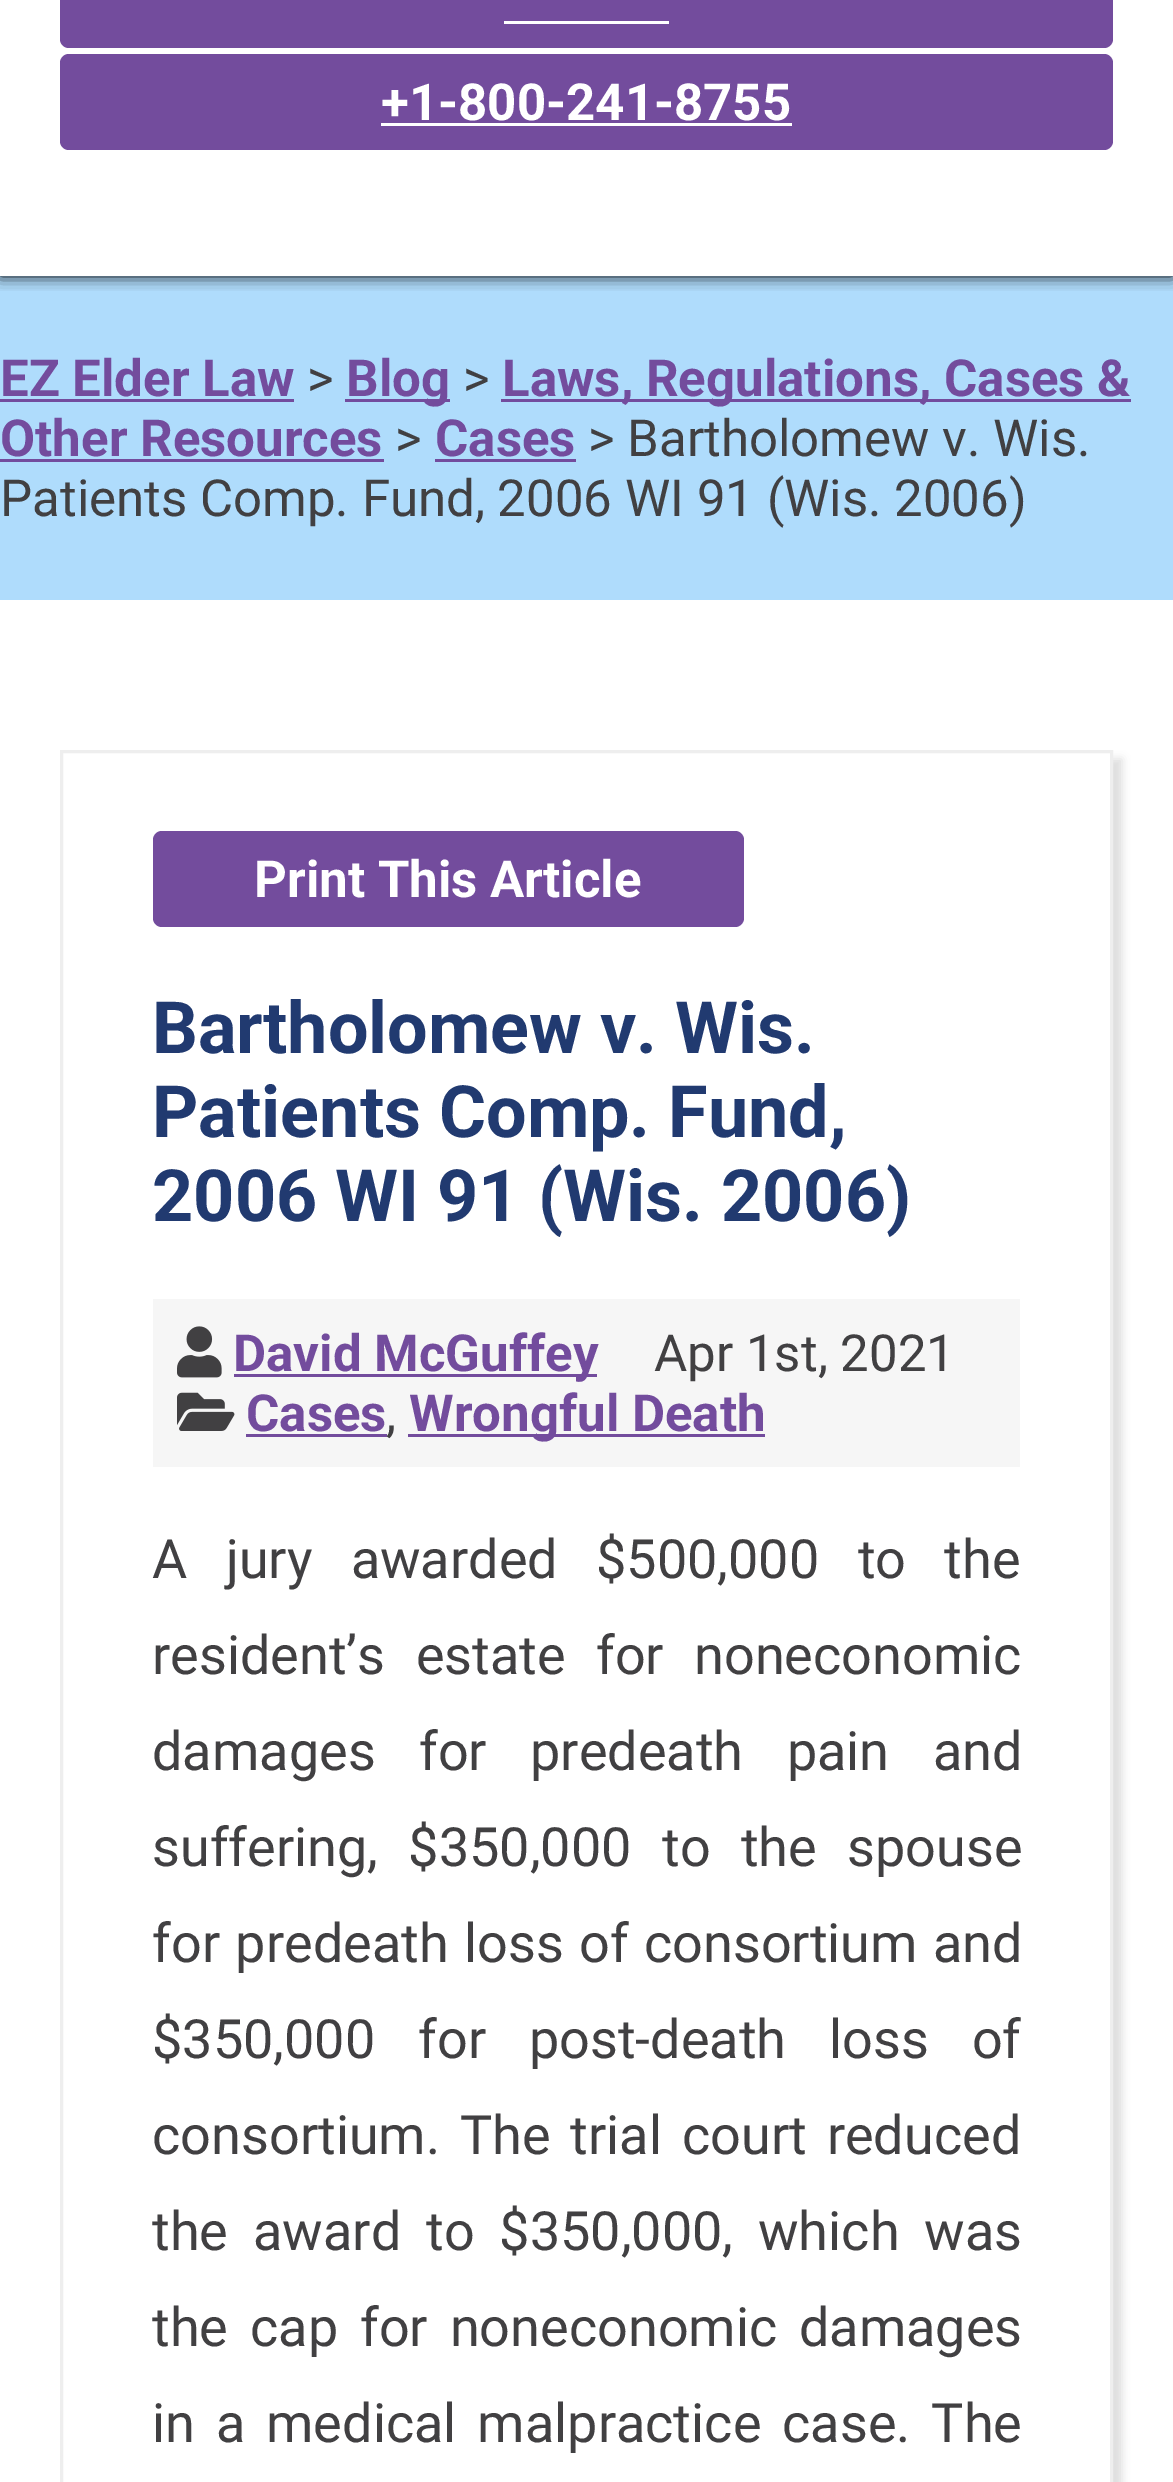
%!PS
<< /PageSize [1173 2482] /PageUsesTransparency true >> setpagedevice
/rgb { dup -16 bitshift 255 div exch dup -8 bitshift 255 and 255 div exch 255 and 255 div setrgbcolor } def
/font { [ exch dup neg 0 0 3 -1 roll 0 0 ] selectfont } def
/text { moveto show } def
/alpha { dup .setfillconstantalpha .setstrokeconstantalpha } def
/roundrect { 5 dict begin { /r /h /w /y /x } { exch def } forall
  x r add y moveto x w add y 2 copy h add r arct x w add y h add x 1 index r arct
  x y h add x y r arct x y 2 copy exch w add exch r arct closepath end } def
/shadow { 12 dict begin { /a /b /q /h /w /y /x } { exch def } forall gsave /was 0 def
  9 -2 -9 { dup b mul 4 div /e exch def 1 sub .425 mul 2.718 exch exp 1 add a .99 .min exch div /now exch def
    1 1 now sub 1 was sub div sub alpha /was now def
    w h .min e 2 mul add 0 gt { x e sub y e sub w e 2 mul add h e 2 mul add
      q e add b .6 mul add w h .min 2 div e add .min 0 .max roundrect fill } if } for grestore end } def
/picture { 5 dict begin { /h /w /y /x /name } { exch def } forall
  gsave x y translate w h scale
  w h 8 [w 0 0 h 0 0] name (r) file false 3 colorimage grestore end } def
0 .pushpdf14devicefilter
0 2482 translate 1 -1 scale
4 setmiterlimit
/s1 { /Roboto-Bold 51 font 16#FFFFFF rgb } def
/s2 { /Roboto-Bold 51 font 16#734C9D rgb } def
/s3 { /Roboto-Regular 51 font 16#414042 rgb } def
/s4 { /Roboto-Bold 72 font 16#213A70 rgb } def
16#FFFFFF rgb
0 0 1173 2482 rectfill
16#AFDCFC rgb
0 276 1173 324 rectfill
gsave
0 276 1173 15 rectclip
16#000000 rgb
0 -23 1173 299 0 7.5 1 shadow
grestore
16#734C9D rgb
60 -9 1053 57 9 roundrect fill
16#FFFFFF rgb
504 21 165 3 rectfill
16#734C9D rgb
60 54 1053 96 9 roundrect fill
s1
(+1-800-241-8755) 381 120 text
381 123 411 3 rectfill
s2
(EZ Elder Law) 0 396 text
0 399 294 3 rectfill
s3
(>) 307 396 text
16#734C9D rgb
345 399 105 3 rectfill
s2
(Blog) 346 396 text
s3
(>) 463 396 text
16#734C9D rgb
501 399 630 3 rectfill
s2
(Laws, Regulations, Cases &) 502 396 text
(Other Resources) 0 456 text
0 459 384 3 rectfill
s3
(>) 395 456 text
s2
(Cases) 435 456 text
435 459 141 3 rectfill
s3
(> Bartholomew v. Wis.) 588 456 text
(Patients Comp. Fund, 2006 WI 91 \(Wis. 2006\)) 0 516 text
gsave
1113 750 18 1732 rectclip
16#DDDDDD rgb
69 759 1053 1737 0 4.5 1 shadow
grestore
16#EEEEEE rgb
3 setlinewidth
61.5 751.5 1050 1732 rectstroke
16#734C9D rgb
153 831 591 96 9 roundrect fill
s1
(Print This Article) 254 897 text
s4
(Bartholomew v. Wis.) 152 1053 text
(Patients Comp. Fund,) 152 1137 text
(2006 WI 91 \(Wis. 2006\)) 152 1221 text
16#F6F6F6 rgb
153 1299 867 168 rectfill
(pic1.raw) 177 1326 45 52 picture
16#734C9D rgb
234 1374 363 3 rectfill
s2
(David McGuffey) 233 1371 text
s3
(Apr 1st, 2021) 654 1371 text
(pic2.raw) 177 1392 58 39 picture
s2
(Cases) 246 1431 text
246 1434 141 3 rectfill
s3
(,) 386 1431 text
16#734C9D rgb
408 1434 357 3 rectfill
s2
(Wrongful Death) 409 1431 text
/Roboto-Regular 54 font
16#414042 rgb
152 1578 moveto 25 0 32 (A jury awarded $500,000 to the) widthshow
152 1674 moveto 17 0 32 (resident’s estate for noneconomic) widthshow
152 1770 moveto 30 0 32 (damages for predeath pain and) widthshow
152 1866 moveto 17 0 32 (suffering, $350,000 to the spouse) widthshow
152 1962 moveto 2 0 32 (for predeath loss of consortium and) widthshow
152 2058 moveto 29.5 0 32 ($350,000 for post-death loss of) widthshow
152 2154 moveto 6.5 0 32 (consortium. The trial court reduced) widthshow
152 2250 moveto 11.5 0 32 (the award to $350,000, which was) widthshow
152 2346 moveto 8.5 0 32 (the cap for noneconomic damages) widthshow
152 2442 moveto 7.5 0 32 (in a medical malpractice case. The) widthshow
.poppdf14devicefilter showpage
